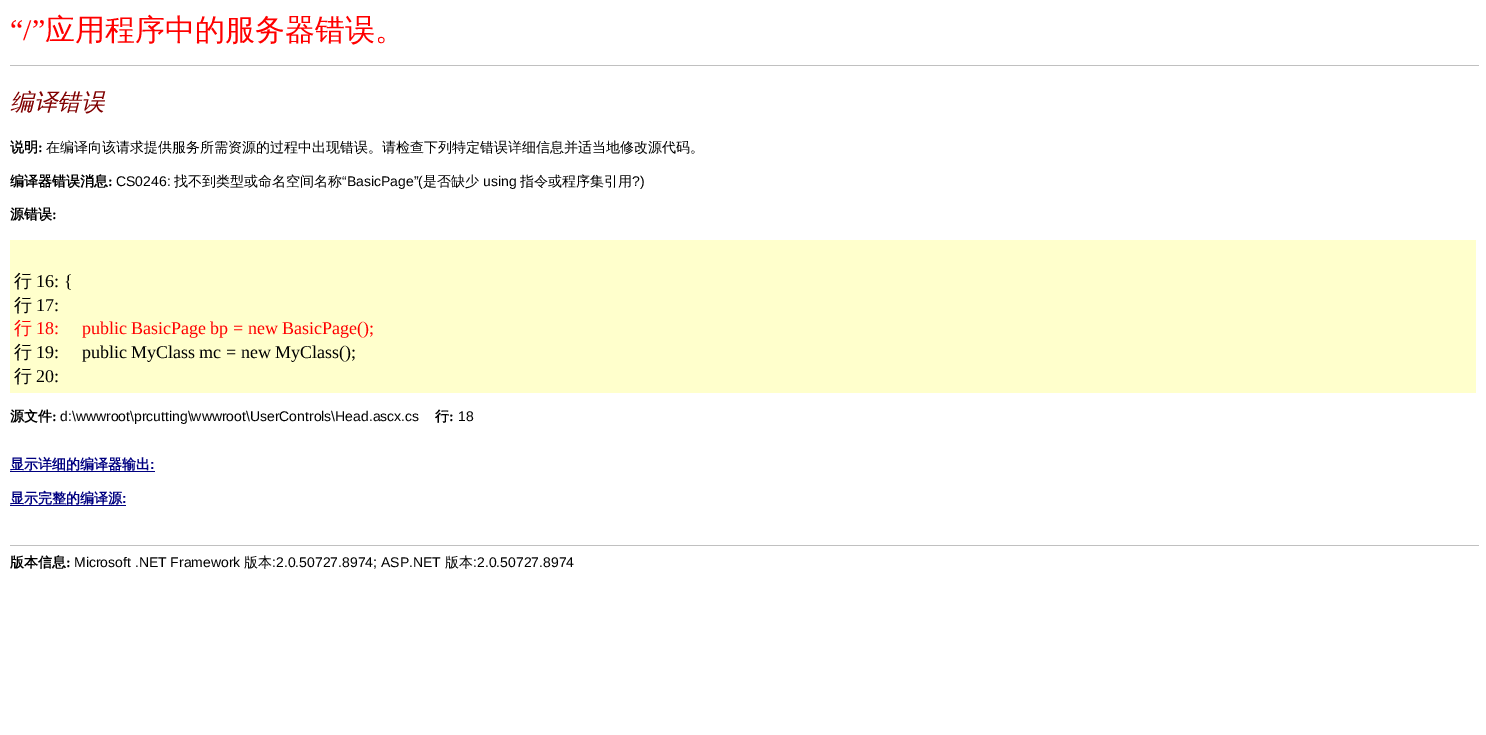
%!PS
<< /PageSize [1486 735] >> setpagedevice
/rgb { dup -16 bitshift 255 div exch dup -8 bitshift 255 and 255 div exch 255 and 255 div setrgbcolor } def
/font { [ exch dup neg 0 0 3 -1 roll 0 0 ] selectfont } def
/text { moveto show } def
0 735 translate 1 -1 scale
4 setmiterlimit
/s1 { /LiberationSerif-Regular 30 font 16#FF0000 rgb } def
/s2 { /WenQuanYiZenHei-Medium 30 font 16#FF0000 rgb } def
/s3 { /WenQuanYiZenHei-MediumItalic 23.5 font 16#800000 rgb } def
/s4 { /WenQuanYiZenHei-Bold 14 font 16#000000 rgb } def
/s5 { /LiberationSerif-Bold 14 font 16#000000 rgb } def
/s6 { /WenQuanYiZenHei-Medium 14 font 16#000000 rgb } def
/s7 { /LiberationSans-Regular 14 font 16#000000 rgb } def
/s8 { /WenQuanYiZenHei-Medium 18 font 16#000000 rgb } def
/s9 { /LiberationSerif-Regular 18 font 16#000000 rgb } def
/s10 { /WenQuanYiZenHei-Medium 18 font 16#FF0000 rgb } def
/s11 { /LiberationSerif-Regular 18 font 16#FF0000 rgb } def
/s12 { /WenQuanYiZenHei-Bold 14 font 16#000080 rgb } def
/s13 { /LiberationSans-Bold 14 font 16#000080 rgb } def
16#FFFFFF rgb
0 0 1486 735 rectfill
s1
(“/”) 10 40 text
s2
(应用程序中的服务器错误。) 45 40 text
16#C0C0C0 rgb
10 65 1469 1 rectfill
s3
(编译错误) 10 110 text
s4
(说明) 10 152 text
s5
(:) 38 152 text
s6
(在编译向该请求提供服务所需资源的过程中出现错误。请检查下列特定错误详细信息并适当地修改源代码。) 46 152 text
s4
(编译器错误消息) 10 186 text
s5
(:) 108 186 text
s7
(CS0246:) 116 186 text
s6
(找不到类型或命名空间名称) 174 186 text
s7
(“BasicPage”\() 342 186 text
s6
(是否缺少) 423 186 text
s7
(using) 483 186 text
s6
(指令或程序集引用) 520 186 text
s7
(?\)) 632 186 text
s4
(源错误) 10 219 text
s5
(:) 52 219 text
16#FFFFCC rgb
10 240 1466 153 rectfill
s8
(行) 14 287 text
s9
(16: {) 36 287 text
s8
(行) 14 311 text
s9
(17:) 36 311 text
s10
(行) 14 334 text
s11
(18:     public BasicPage bp = new BasicPage\(\);) 36 334 text
s8
(行) 14 358 text
s9
(19:     public MyClass mc = new MyClass\(\);) 36 358 text
s8
(行) 14 382 text
s9
(20:) 36 382 text
s4
(源文件) 10 421 text
s5
(:) 52 421 text
s7
(d:\\wwwroot\\prcutting\\wwwroot\\UserControls\\Head.ascx.cs) 60 421 text
s4
(行) 435 421 text
s5
(:) 449 421 text
s7
(18) 458 421 text
s12
(显示详细的编译器输出) 10 469 text
s13
(:) 150 469 text
10 471 145 1 rectfill
s12
(显示完整的编译源) 10 503 text
s13
(:) 122 503 text
10 505 116 1 rectfill
16#C0C0C0 rgb
10 545 1469 1 rectfill
s4
(版本信息) 10 567 text
s5
(:) 66 567 text
s7
(Microsoft .NET Framework) 74 567 text
s6
(版本) 244 567 text
s7
(:2.0.50727.8974; ASP.NET) 272 567 text
s6
(版本) 445 567 text
s7
(:2.0.50727.8974) 473 567 text
showpage
